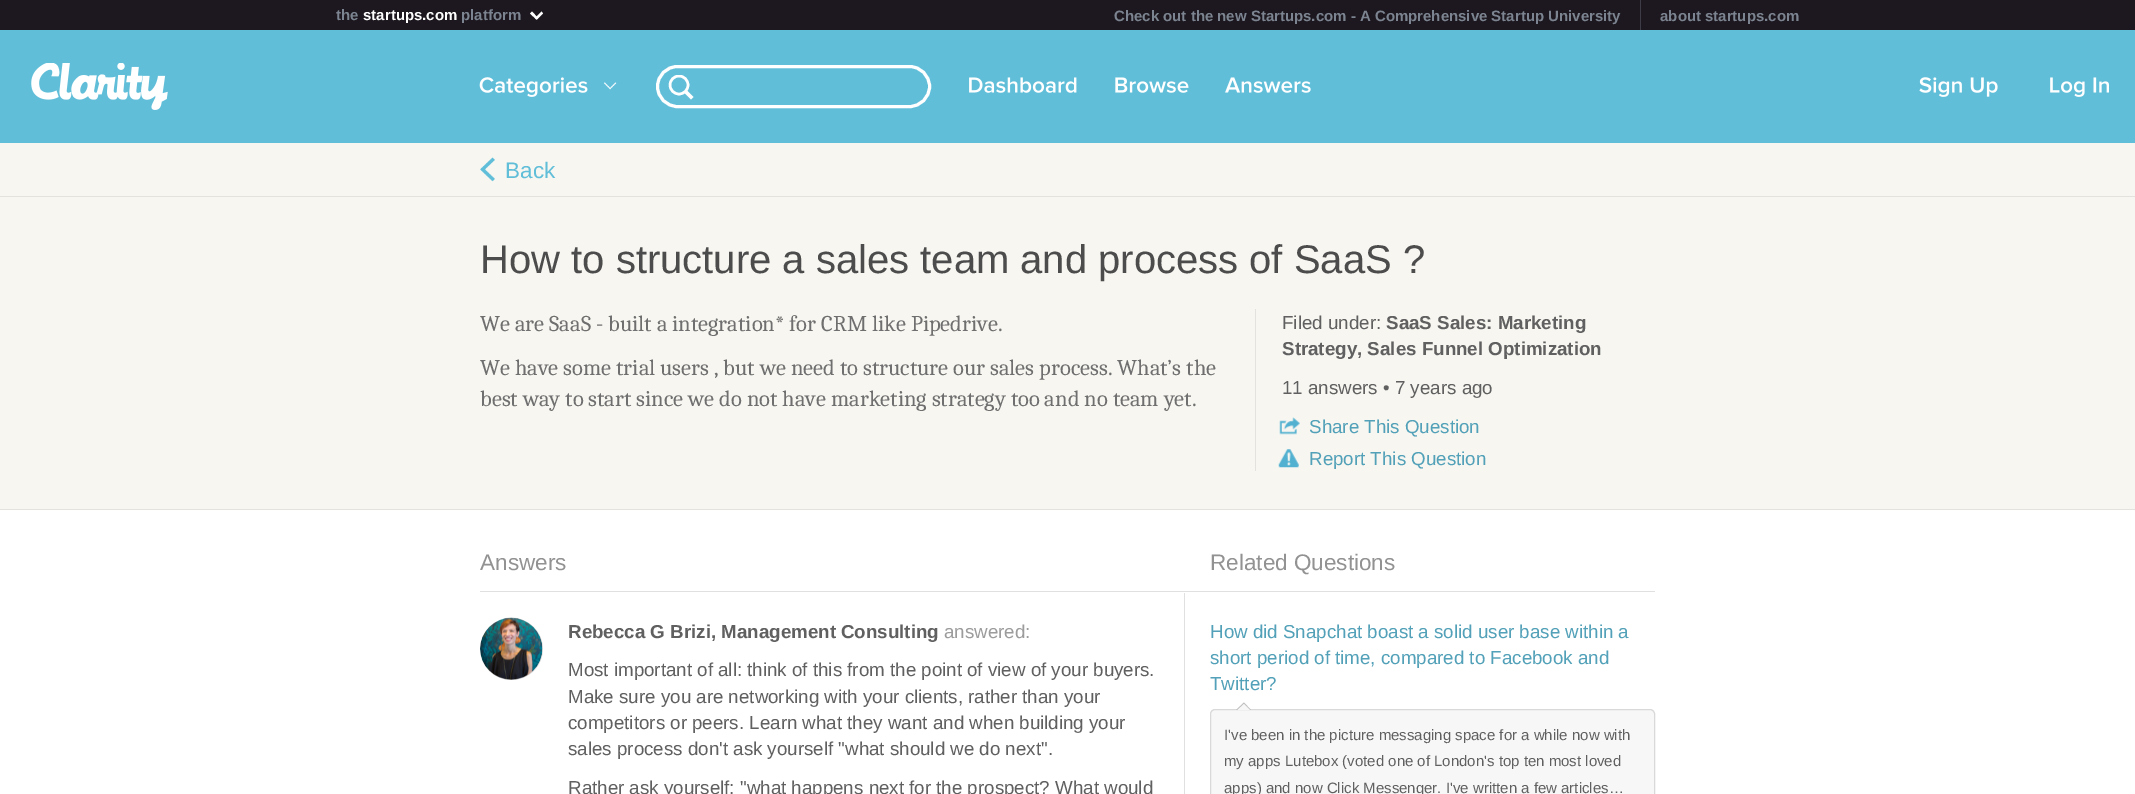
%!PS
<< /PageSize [2135 794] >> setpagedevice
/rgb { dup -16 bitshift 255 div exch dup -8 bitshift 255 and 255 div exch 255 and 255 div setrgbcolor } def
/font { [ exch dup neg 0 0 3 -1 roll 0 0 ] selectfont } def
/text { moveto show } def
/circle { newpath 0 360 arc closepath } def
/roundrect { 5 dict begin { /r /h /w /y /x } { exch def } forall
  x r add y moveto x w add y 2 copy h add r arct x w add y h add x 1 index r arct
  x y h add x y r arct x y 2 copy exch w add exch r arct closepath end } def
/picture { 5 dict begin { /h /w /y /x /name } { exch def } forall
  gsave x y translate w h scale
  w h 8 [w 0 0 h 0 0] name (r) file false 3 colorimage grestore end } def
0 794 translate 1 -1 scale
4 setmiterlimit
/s1 { /LiberationSans-Bold 15 font 16#7B8490 rgb } def
/s2 { /LiberationSans-Bold 15 font 16#FFFFFF rgb } def
/s3 { /LiberationSans-Regular 22.5 font 16#61BED9 rgb } def
/s4 { /LiberationSans-Regular 40 font 16#4C4C4C rgb } def
/s5 { /Caladea-Regular 22.5 font 16#6F6F6F rgb } def
/s6 { /LiberationSans-Regular 18.75 font 16#606060 rgb } def
/s7 { /LiberationSans-Bold 18.75 font 16#606060 rgb } def
/s8 { /LiberationSans-Regular 18.75 font 16#52A1B8 rgb } def
/s9 { /LiberationSans-Regular 22.5 font 16#929292 rgb } def
/s10 { /LiberationSans-Regular 18.75 font 16#9C9C9C rgb } def
/s11 { /LiberationSans-Regular 15 font 16#606060 rgb } def
16#FFFFFF rgb
0 0 2135 794 rectfill
16#1D181F rgb
0 0 2135 30 rectfill
s1
(the) 336 20 text
s2
(startups.com) 363 20 text
s1
(platform) 461 20 text
16#FFFFFF rgb
538 18 moveto 536.5 19.5 lineto 530 13.5 lineto 532 11.5 lineto closepath fill
537 19.5 moveto 535 18 lineto 541.5 11.5 lineto 543 13.5 lineto closepath fill
16#3E3D47 rgb
1640 0 1 30 rectfill
s1
(Check out the new Startups.com - A Comprehensive Startup University) 1114 21 text
(about startups.com) 1660 21 text
16#61BED9 rgb
0 30 2135 113 rectfill
(pic1.raw) 31 63 137 47 picture
(pic2.raw) 479 77 109 20 picture
(pic3.raw) 604 82 13 8 picture
16#FFFFFF rgb
3 setlinewidth
657.5 66.5 272 40 20 roundrect stroke
gsave
656 75 38 25 rectclip
2.5 setlinewidth
679 85 9 circle stroke
grestore
684 92.5 moveto 686.5 90 lineto 693.5 97 lineto 691 99.5 lineto closepath eofill
(pic4.raw) 969 77 108 16 picture
(pic5.raw) 1115 77 74 16 picture
(pic6.raw) 1225 77 86 16 picture
(pic7.raw) 1919 77 79 20 picture
(pic8.raw) 2050 77 59 20 picture
16#F7F6F1 rgb
0 143 2135 366 rectfill
16#E4E2DE rgb
0 196 2135 1 rectfill
(pic9.raw) 480 157 15 25 picture
s3
(Back) 505 178 text
16#E4E2DE rgb
0 509 2135 1 rectfill
s4
(How to structure a sales team and process of SaaS ?) 480 273 text
s5
(We are SaaS - built a integration* for CRM like Pipedrive.) 480 331 text
(We have some trial users , but we need to structure our sales process. What’s the) 480 375 text
(best way to start since we do not have marketing strategy too and no team yet.) 480 406 text
16#E4E2DE rgb
1255 309 1 162 rectfill
s6
(Filed under:) 1282 329 text
s7
(SaaS Sales: Marketing) 1386 329 text
(Strategy, Sales Funnel Optimization) 1282 355 text
s6
(11 answers • 7 years ago) 1282 394 text
(pic10.raw) 1279 417 21 18 picture
s8
(Share This Question) 1309 433 text
(pic11.raw) 1278 449 21 19 picture
(Report This Question) 1309 465 text
16#E0E0E0 rgb
480 591 1175 1 rectfill
s9
(Answers) 480 570 text
16#E0E0E0 rgb
1184 593 1 201 rectfill
16#D9D9D9 rgb
480 618 63 62 31 roundrect fill
(pic12.raw) 480 617 63 63 picture
s7
(Rebecca G Brizi, Management Consulting) 568 638 text
s10
(answered:) 944 638 text
s6
(Most important of all: think of this from the point of view of your buyers.) 568 676 text
(Make sure you are networking with your clients, rather than your) 568 703 text
(competitors or peers. Learn what they want and when building your) 568 729 text
(sales process don't ask yourself "what should we do next".) 568 755 text
(Rather ask yourself: "what happens next for the prospect? What would) 568 794 text
s9
(Related Questions) 1210 570 text
s8
(How did Snapchat boast a solid user base within a) 1210 638 text
(short period of time, compared to Facebook and) 1210 664 text
(Twitter?) 1210 690 text
16#F7F7F7 rgb
1215 709 moveto 1650 709 lineto 1653 709 1655 711 1655 714 curveto 1655 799 lineto 1210 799 lineto 1210 714 lineto 1210 711 1212 709 1215 709 curveto closepath fill
16#D9D9D9 rgb
1 setlinewidth
1210.5 709.5 444 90 4.5 roundrect stroke
16#C0C0C0 rgb
1251 710 moveto 1236 710 lineto 1244 702.5 lineto closepath fill
16#F7F7F7 rgb
1250 710 moveto 1237.5 710 lineto 1244 704 lineto closepath fill
s11
(I've been in the picture messaging space for a while now with) 1224 740 text
(my apps Lutebox \(voted one of London's top ten most loved) 1224 766 text
(apps\) and now Click Messenger. I've written a few articles…) 1224 793 text
showpage
